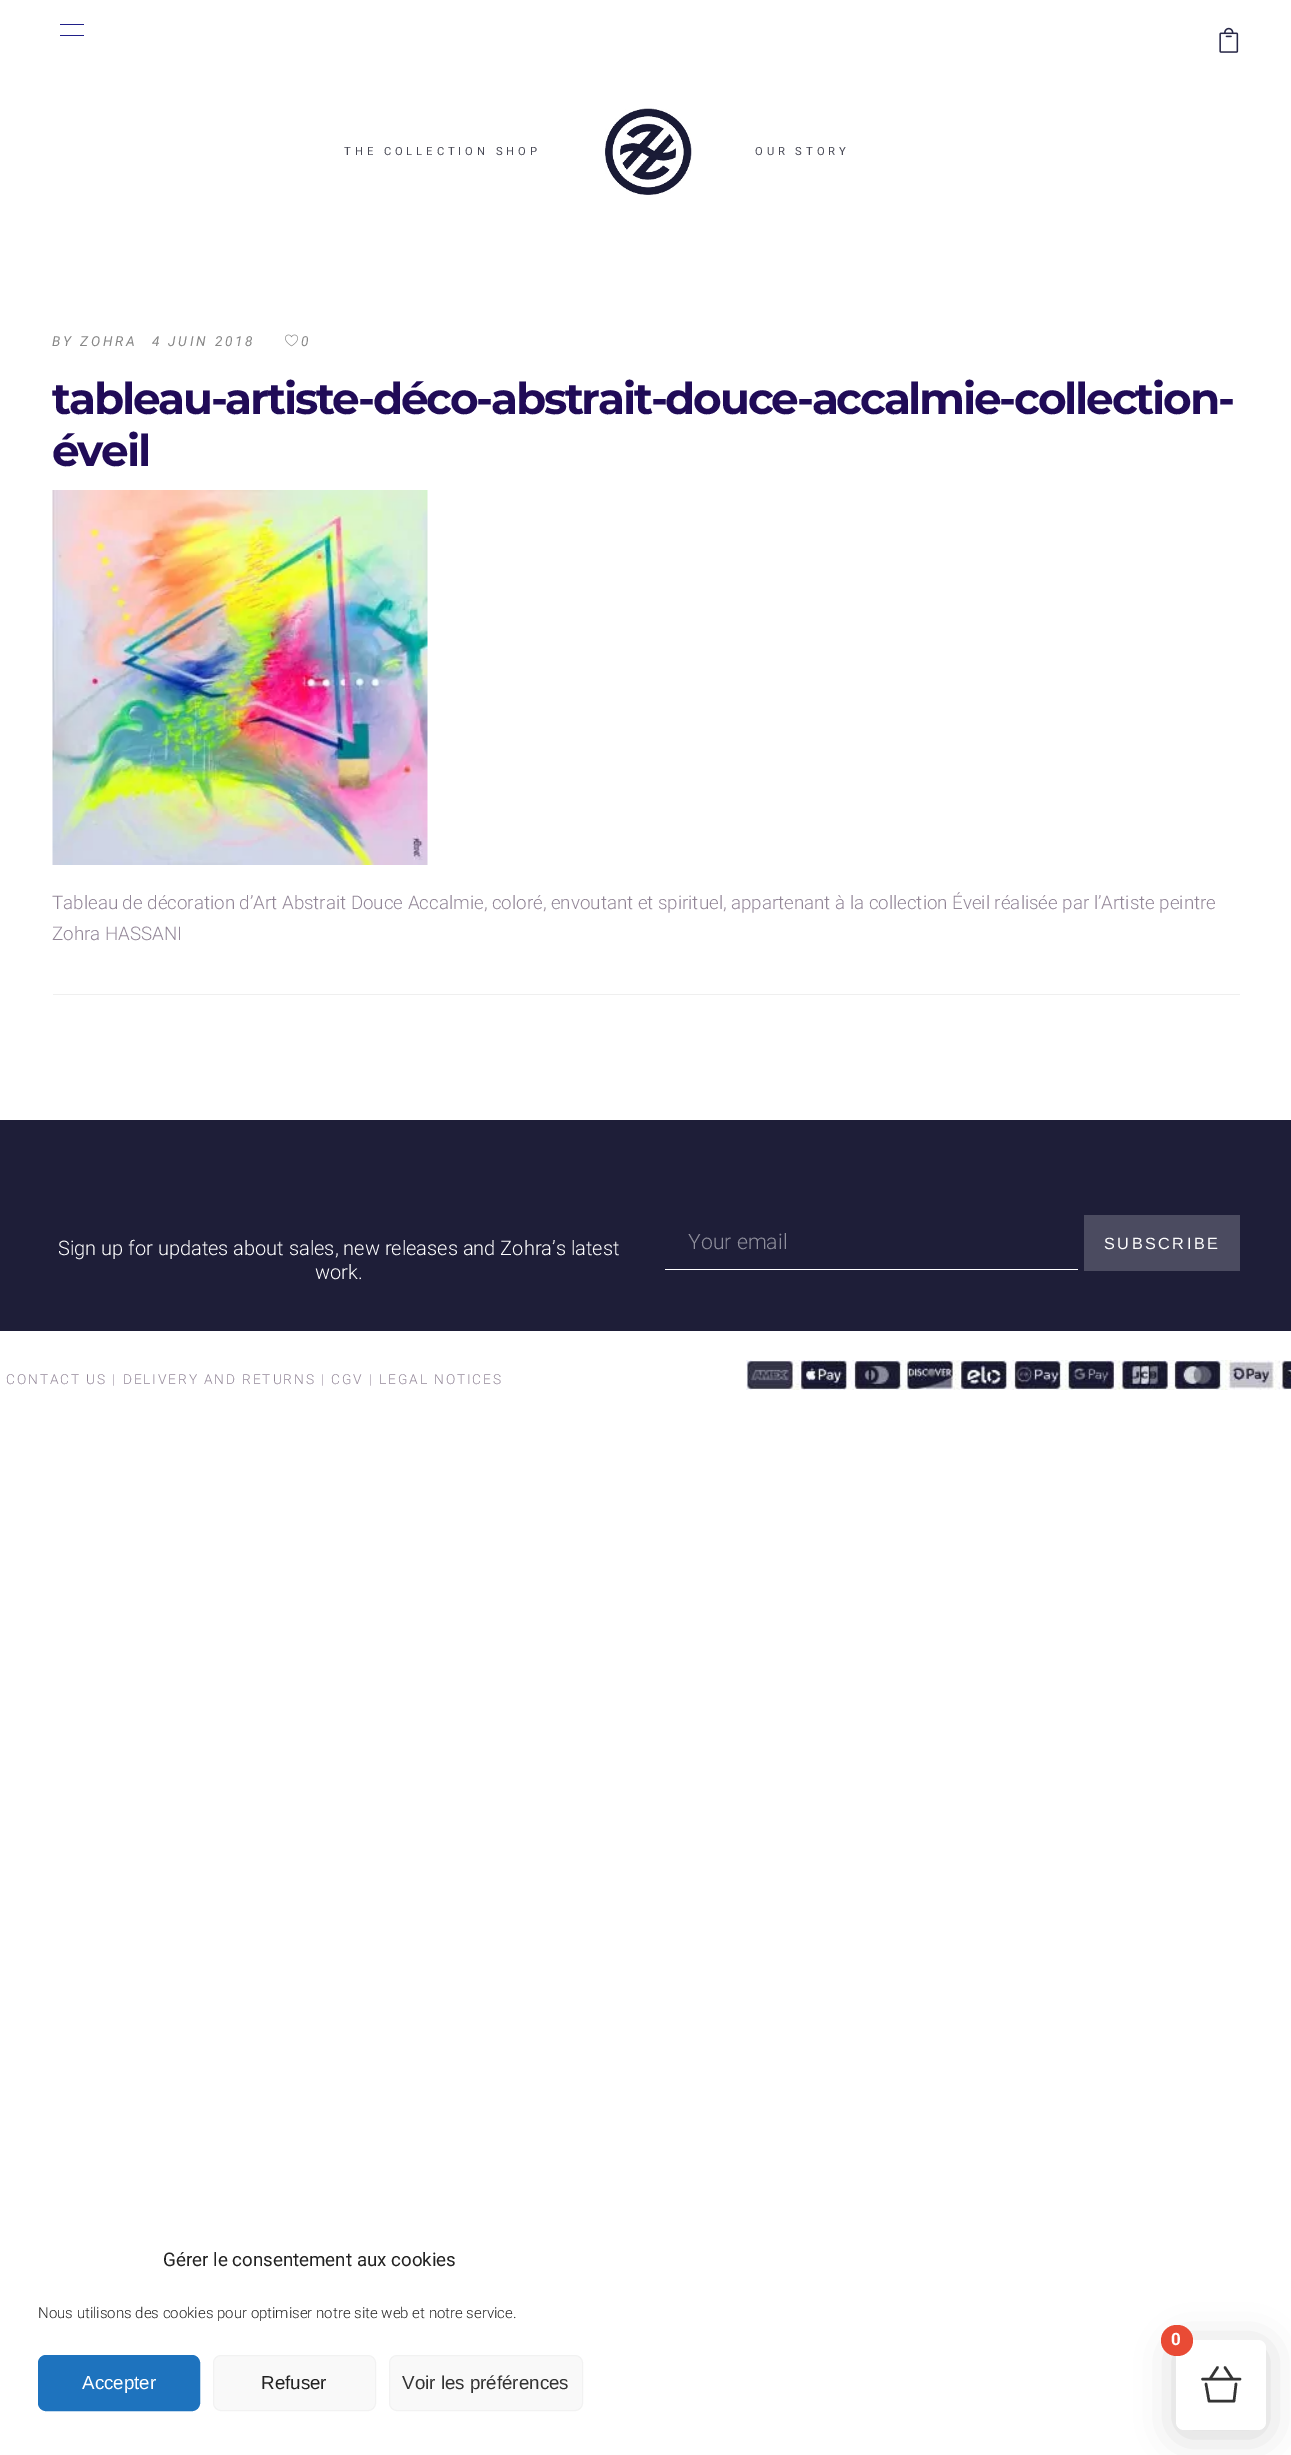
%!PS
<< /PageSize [1291 2455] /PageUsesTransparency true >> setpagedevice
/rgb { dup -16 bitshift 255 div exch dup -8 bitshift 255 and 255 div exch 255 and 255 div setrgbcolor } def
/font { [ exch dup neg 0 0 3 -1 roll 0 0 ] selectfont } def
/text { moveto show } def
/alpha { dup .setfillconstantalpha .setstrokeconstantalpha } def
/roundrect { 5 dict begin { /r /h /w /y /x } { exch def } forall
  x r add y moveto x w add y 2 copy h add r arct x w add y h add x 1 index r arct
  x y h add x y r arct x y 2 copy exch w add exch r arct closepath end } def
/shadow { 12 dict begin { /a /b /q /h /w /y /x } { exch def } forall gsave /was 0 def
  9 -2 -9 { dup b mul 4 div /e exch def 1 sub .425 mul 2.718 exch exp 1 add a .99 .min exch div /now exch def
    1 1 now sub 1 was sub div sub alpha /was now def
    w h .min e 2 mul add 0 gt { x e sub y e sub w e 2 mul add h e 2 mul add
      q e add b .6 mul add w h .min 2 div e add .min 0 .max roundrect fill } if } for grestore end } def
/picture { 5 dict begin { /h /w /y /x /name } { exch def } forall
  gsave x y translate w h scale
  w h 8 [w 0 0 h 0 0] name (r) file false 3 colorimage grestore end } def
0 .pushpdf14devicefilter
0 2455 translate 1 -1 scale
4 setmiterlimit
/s1 { /Roboto-Light 18.75 font 16#928697 rgb } def
/s2 { /Roboto-Light 20 font 16#FFFFFF rgb } def
/s3 { /Roboto-Light 21.25 font 16#8F8F9C rgb } def
/s4 { /Roboto-Regular 18.75 font 16#222222 rgb } def
/s5 { /Roboto-Light 15 font 16#222222 rgb } def
/s6 { /LiberationSans-Regular 18.75 font 16#FFFFFF rgb } def
/s7 { /LiberationSans-Regular 18.75 font 16#222222 rgb } def
/s8 { /LiberationSans-Regular 18.75 font 16#333333 rgb } def
/s9 { /Roboto-Bold 17 font 16#FFFFFF rgb } def
16#FFFFFF rgb
0 0 1291 2455 rectfill
16#1F1F88 rgb
60 24 24 1 rectfill
60 35 24 1 rectfill
(pic1.raw) 1219 27 20 26 picture
/Roboto-Regular 11.25 font
16#494A56 rgb
344 155 moveto 3.9 0 (THE COLLECTION SHOP) ashow
(pic2.raw) 605 108 87 87 picture
755 155 moveto 3.9 0 (OUR STORY) ashow
/Roboto-Italic 13.75 font
16#878787 rgb
52 346 moveto 2.75 0 (BY ZOHRA) ashow
152 346 moveto 2.75 0 (4 JUIN 2018) ashow
(pic3.raw) 285 334 13 13 picture
301 346 moveto 2.75 0 (0) ashow
/Montserrat-Bold 43.75 font
16#200B57 rgb
52 414 moveto -2.2 0 (tableau-artiste-déco-abstrait-douce-accalmie-collection-) ashow
52 466 moveto -2.2 0 (éveil) ashow
(pic4.raw) 52 490 376 375 picture
s1
(Tableau de décoration d’Art Abstrait Douce Accalmie, coloré, envoutant et spirituel, appartenant à la collection Éveil réalisée par l’Artiste peintre) 52 909 text
(Zohra HASSANI) 52 940 text
16#EFEFEF rgb
53 994 1187 1 rectfill
16#1E1E38 rgb
0 1120 1291 211 rectfill
s2
(Sign up for updates about sales, new releases and Zohra’s latest) 58 1255 text
(work.) 315 1279 text
665 1269 413 1 rectfill
s3
(Your email) 688 1249 text
16#4B4B60 rgb
1084 1215 156 56 rectfill
/LiberationSans-Regular 16.25 font
16#FFFFFF rgb
1104 1249 moveto 2.5 0 (SUBSCRIBE) ashow
/Roboto-Light 13.75 font
16#928697 rgb
6 1384 moveto 1.88 0 (CONTACT US | DELIVERY AND RETURNS | CGV | LEGAL NOTICES) ashow
(pic5.raw) 746 1360 545 30 picture
s4
(Gérer le consentement aux cookies) 163 2266 text
s5
(Nous utilisons des cookies pour optimiser notre site web et notre service.) 38 2318 text
16#1E73BE rgb
38.5 2355.5 161 55 7.5 roundrect gsave fill grestore
stroke
s6
(Accepter) 82 2389 text
16#F9F9F9 rgb
213.5 2355.5 162 55 7.5 roundrect gsave fill grestore
16#F2F2F2 rgb
stroke
s7
(Refuser) 261 2389 text
16#F9F9F9 rgb
389.5 2355.5 193 55 7.5 roundrect gsave fill grestore
16#F2F2F2 rgb
stroke
s8
(Voir les préférences) 402 2389 text
16#000000 rgb
1176 2345 90 90 8 19 0.17 shadow
16#FFFFFF rgb
1176 2340 90 90 8 roundrect fill
16#E94B35 rgb
1161 2325 32 31 15.5 roundrect fill
s9
(0) 1171 2345 text
16#343434 rgb
2.5 setlinewidth
1 setlinecap
1 setlinejoin
1210 2379 moveto 1217.5 2367.5 lineto 1232.5 2379 moveto 1225 2367.5 lineto 1236 2384 moveto 1234 2401 lineto 1209 2401 lineto 1206 2384 lineto 1202.5 2379 moveto 1240 2379 lineto stroke
.poppdf14devicefilter showpage
